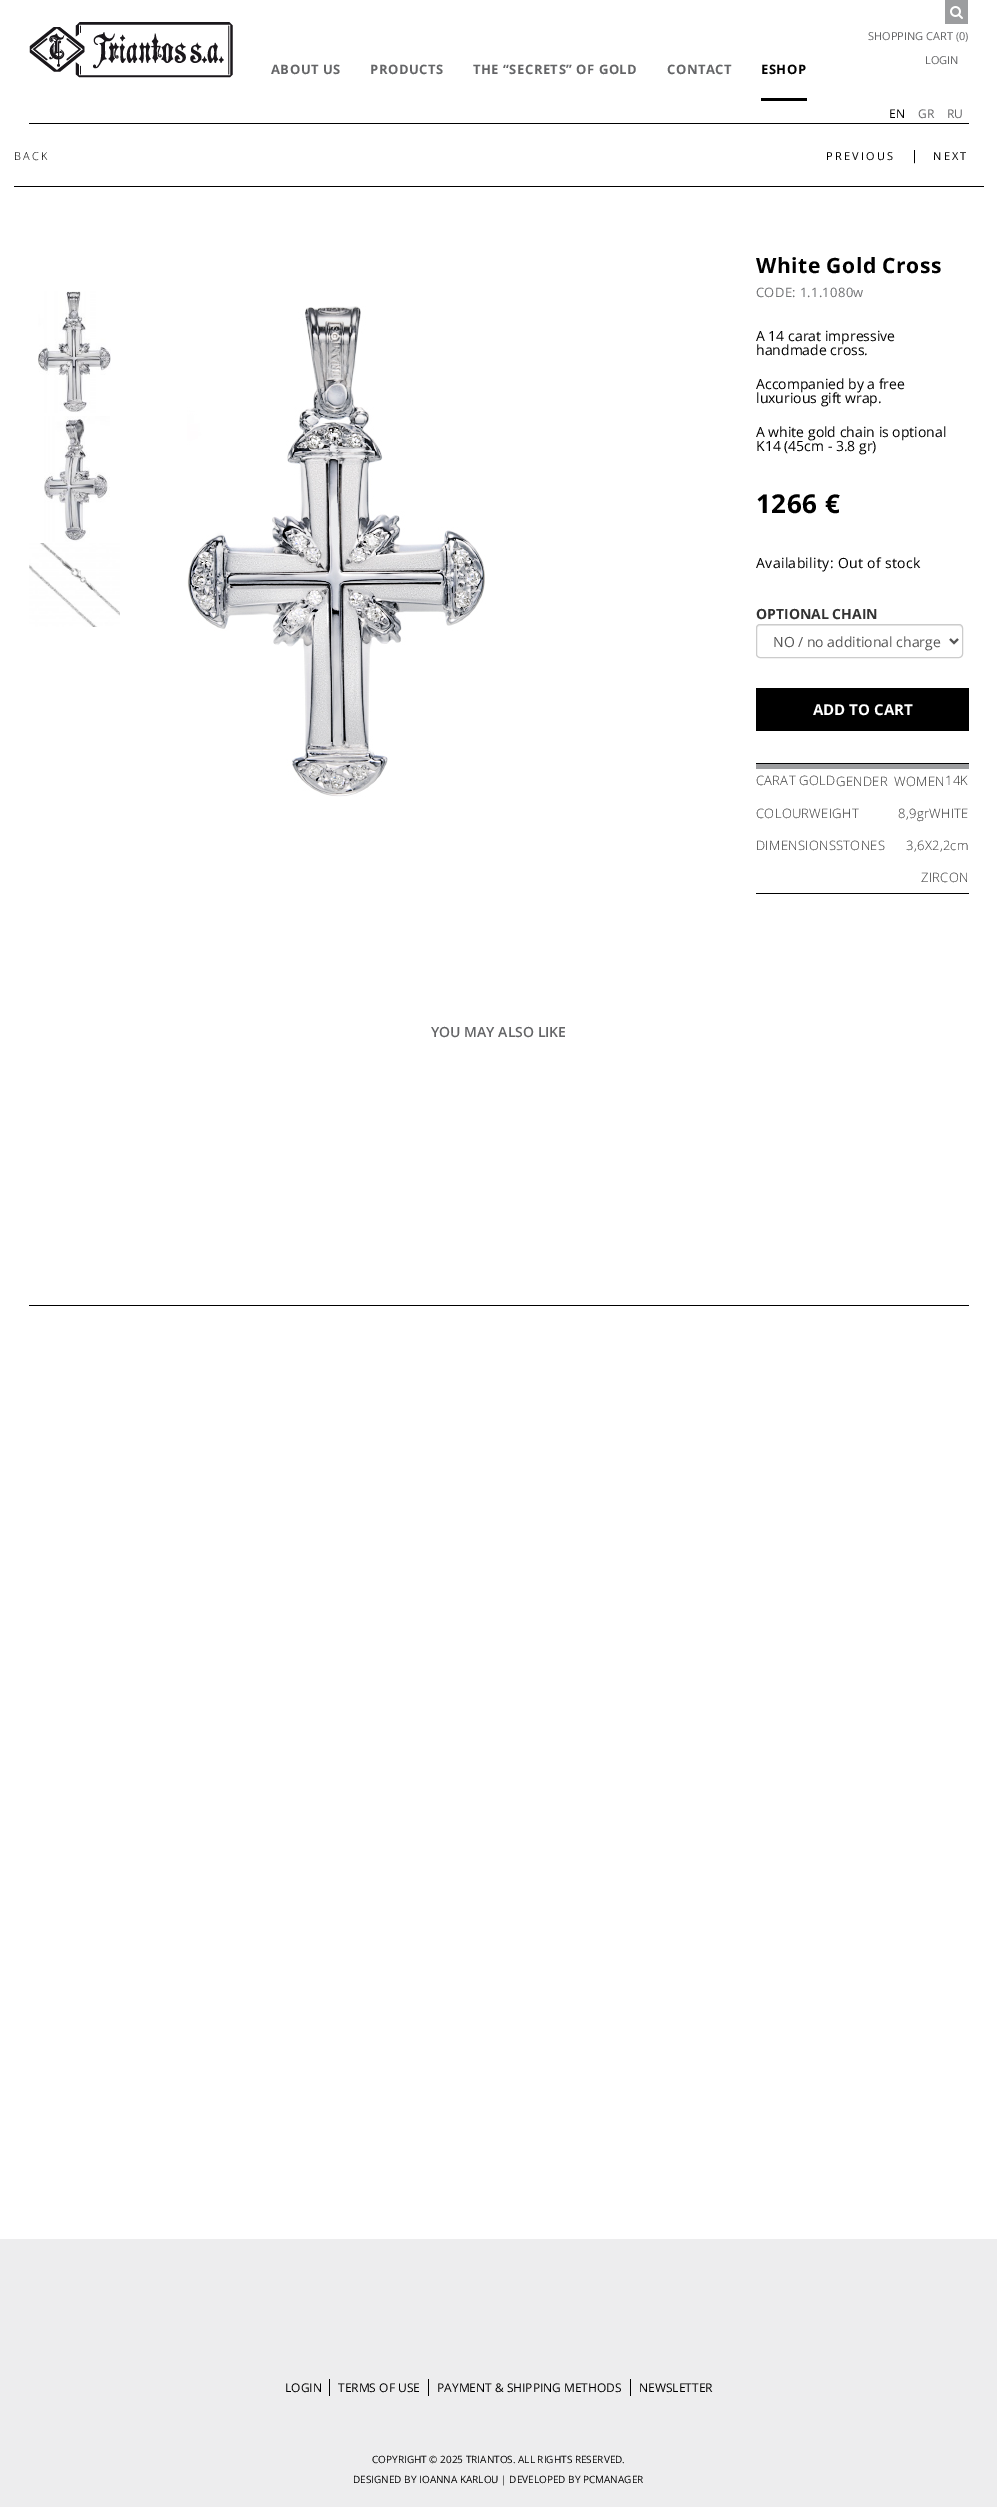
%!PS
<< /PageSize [997 2507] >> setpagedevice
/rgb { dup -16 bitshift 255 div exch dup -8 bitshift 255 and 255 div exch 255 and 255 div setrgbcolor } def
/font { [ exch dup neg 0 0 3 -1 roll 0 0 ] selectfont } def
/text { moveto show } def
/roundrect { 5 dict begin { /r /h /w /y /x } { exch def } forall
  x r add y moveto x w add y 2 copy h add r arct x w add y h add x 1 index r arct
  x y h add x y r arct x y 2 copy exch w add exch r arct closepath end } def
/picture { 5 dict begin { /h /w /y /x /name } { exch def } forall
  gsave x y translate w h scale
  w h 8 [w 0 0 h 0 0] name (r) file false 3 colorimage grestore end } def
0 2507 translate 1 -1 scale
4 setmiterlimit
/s1 { /OpenSans-Regular 11 font 16#646567 rgb } def
/s2 { /OpenSans-Regular 12 font 16#000000 rgb } def
/s3 { /OpenSans-Regular 12 font 16#646567 rgb } def
/s4 { /OpenSans-Regular 13 font 16#000000 rgb } def
/s5 { /OpenSans-Regular 14 font 16#000000 rgb } def
/s6 { /OpenSans-Bold 14 font 16#333333 rgb } def
/s7 { /OpenSans-Regular 14 font 16#555555 rgb } def
/s8 { /OpenSans-Bold 15 font 16#FFFFFF rgb } def
/s9 { /OpenSans-SemiBold 14 font 16#646567 rgb } def
/s10 { /OpenSans-Regular 10 font 16#000000 rgb } def
16#FFFFFF rgb
0 0 997 2507 rectfill
16#000000 rgb
29 123 940 1 rectfill
(pic1.raw) 29 22 204 56 picture
/OpenSans-Bold 13 font
16#646567 rgb
271 74 moveto 0.5 0 (ABOUT US) ashow
370 74 moveto 0.5 0 (PRODUCTS) ashow
473 74 moveto 0.5 0 (THE “SECRETS” OF GOLD) ashow
667 74 moveto 0.5 0 (CONTACT) ashow
16#000000 rgb
761 98 46 3 rectfill
761 74 moveto 0.5 0 (ESHOP) ashow
16#9C9D9F rgb
945 0 23 24 rectfill
(pic2.raw) 950 6 13 13 picture
s1
(SHOPPING CART \(0\)) 868 40 text
(LOGIN) 925 64 text
s2
(EN) 889 118 text
s3
(GR) 918 118 text
(RU) 947 118 text
16#000000 rgb
14 186 970 1 rectfill
/OpenSans-Light 11 font
14 160 moveto 2.25 0 (BACK) ashow
/OpenSans-Regular 11 font
826 160 moveto 2.25 0 (PREVIOUS) ashow
s4
(|) 911 160 text
/OpenSans-Regular 11 font
933 160 moveto 2.25 0 (NEXT) ashow
(pic3.raw) 38 291 73 122 picture
(pic4.raw) 44 416 66 126 picture
(pic5.raw) 29 543 91 84 picture
(pic6.raw) 187 306 299 491 picture
/OpenSans-Bold 21 font
756 273 moveto 0.5 0 (White Gold Cross) ashow
/OpenSans-Regular 13 font
16#707173 rgb
756 297 moveto 0.3 0 (CODE: 1.1.1080w) ashow
s5
(A 14 carat impressive) 756 341 text
(handmade cross.) 756 355 text
(Accompanied by a free) 756 389 text
(luxurious gift wrap.) 756 403 text
(Α white gold chain is optional) 756 437 text
(K14 \(45cm - 3.8 gr\)) 756 451 text
/OpenSans-Bold 26 font
756 513 moveto 0.5 0 (1266 €) ashow
/OpenSans-Regular 14 font
756 568 moveto 0.35 0 (Availability: Out of stock) ashow
s6
(OPTIONAL CHAIN) 756 619 text
16#ECECEC rgb
760 626 moveto 959 626 lineto 961 626 962 627 962 629 curveto 962 627 961 625 959 625 curveto 760 625 lineto 758 625 757 627 757 629 curveto 757 627 758 626 760 626 curveto closepath fill
16#CCCCCC rgb
756.5 624.5 206 33 3.5 roundrect stroke
16#555555 rgb
2 setlinewidth
950 639 moveto 954 643 lineto 958 639 lineto stroke
s7
(NO / no additional charge) 773 647 text
16#000000 rgb
756 688 213 43 rectfill
s8
(ADD TO CART) 813 715 text
16#000000 rgb
756 763 213 1 rectfill
756 893 213 1 rectfill
/OpenSans-Light 13 font
16#333333 rgb
756 785 moveto 0.3 0 (CARAT GOLD) ashow
945 785 moveto 0.3 0 (14K) ashow
16#9C9D9F rgb
756 764 213 5 rectfill
16#333333 rgb
836 786 moveto 0.3 0 (GENDER) ashow
894 786 moveto 0.3 0 (WOMEN) ashow
756 818 moveto 0.3 0 (COLOURWEIGHT) ashow
929 818 moveto 0.3 0 (WHITE) ashow
898 818 moveto 0.3 0 (8,9gr) ashow
756 850 moveto 0.3 0 (DIMENSIONSSTONES) ashow
906 850 moveto 0.3 0 (3,6X2,2cm) ashow
921 882 moveto 0.3 0 (ZIRCON) ashow
16#000000 rgb
29 1305 940 1 rectfill
s9
(YOU MAY ALSO LIKE) 431 1037 text
16#EDEDEE rgb
0 2239 997 268 rectfill
s2
(LOGIN) 285 2392 text
329 2379 1 17 rectfill
(TERMS OF USE) 338 2392 text
428 2379 1 17 rectfill
(PAYMENT & SHIPPING METHODS) 437 2392 text
630 2379 1 17 rectfill
(NEWSLETTER) 639 2392 text
s10
(COPYRIGHT © 2025 TRIANTOS. ALL RIGHTS RESERVED.) 372 2463 text
(DESIGNED BY IOANNA KARLOU | DEVELOPED BY PCMANAGER) 353 2483 text
showpage
